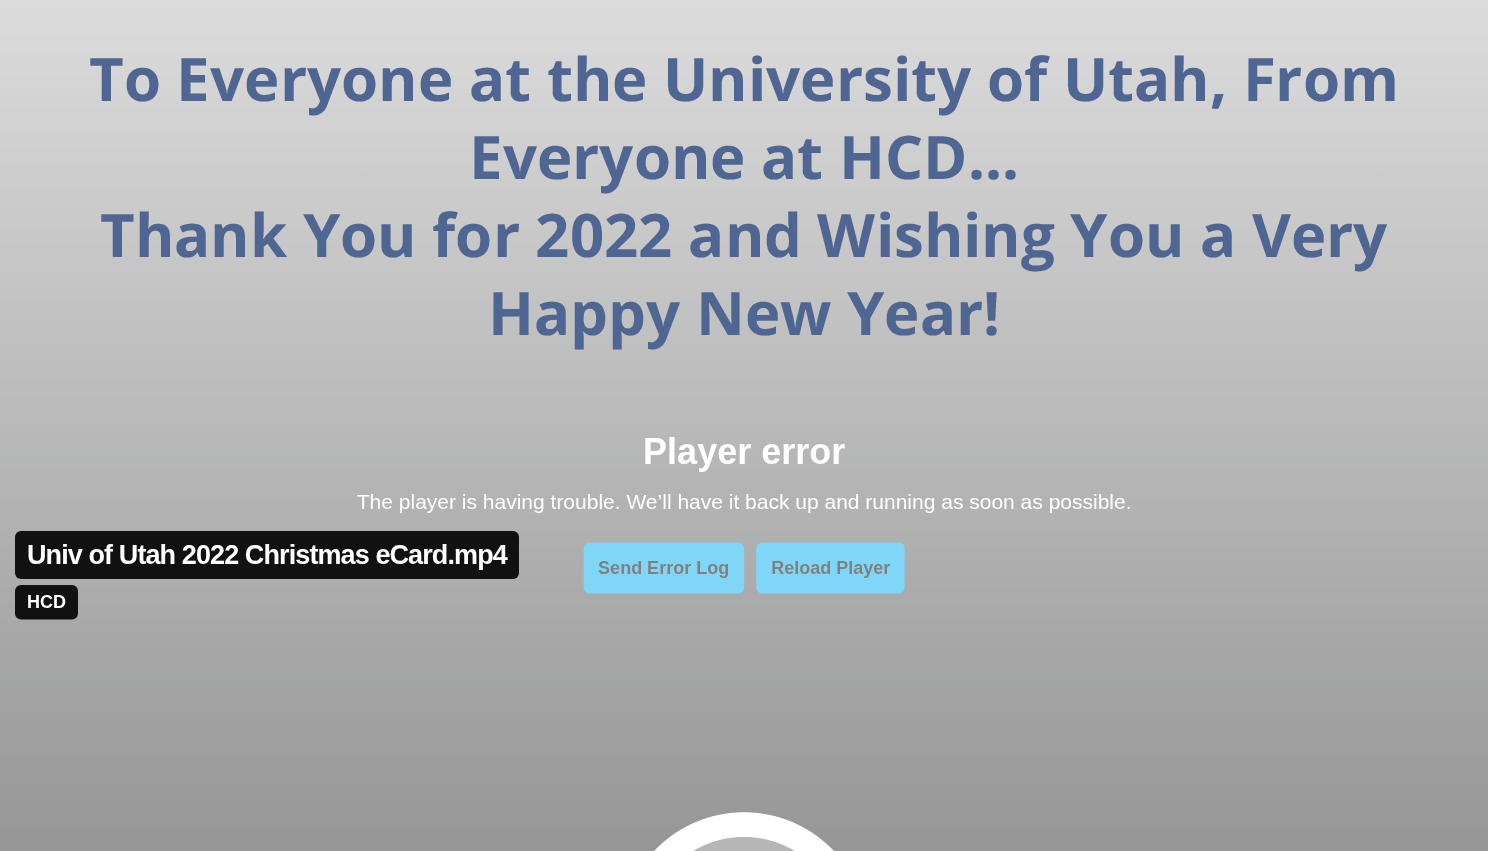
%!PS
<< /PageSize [1488 851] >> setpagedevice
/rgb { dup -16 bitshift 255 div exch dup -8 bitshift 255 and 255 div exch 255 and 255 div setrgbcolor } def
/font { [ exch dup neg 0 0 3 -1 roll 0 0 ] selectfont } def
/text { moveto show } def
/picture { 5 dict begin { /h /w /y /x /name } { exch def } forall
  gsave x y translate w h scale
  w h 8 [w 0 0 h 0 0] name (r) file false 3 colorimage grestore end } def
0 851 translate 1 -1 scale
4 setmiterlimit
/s1 { /OpenSans-Bold 60 font 16#506692 rgb } def
16#FFFFFF rgb
0 0 1488 851 rectfill
(pic1.raw) 0 0 1488 851 picture
s1
(To Everyone at the University of Utah, From) 89 101 text
(Everyone at HCD...) 469 179 text
(Thank You for 2022 and Wishing You a Very) 100 257 text
(Happy New Year!) 488 335 text
(pic2.raw) 15 531 504 89 picture
(pic3.raw) 654 812 180 39 picture
showpage
